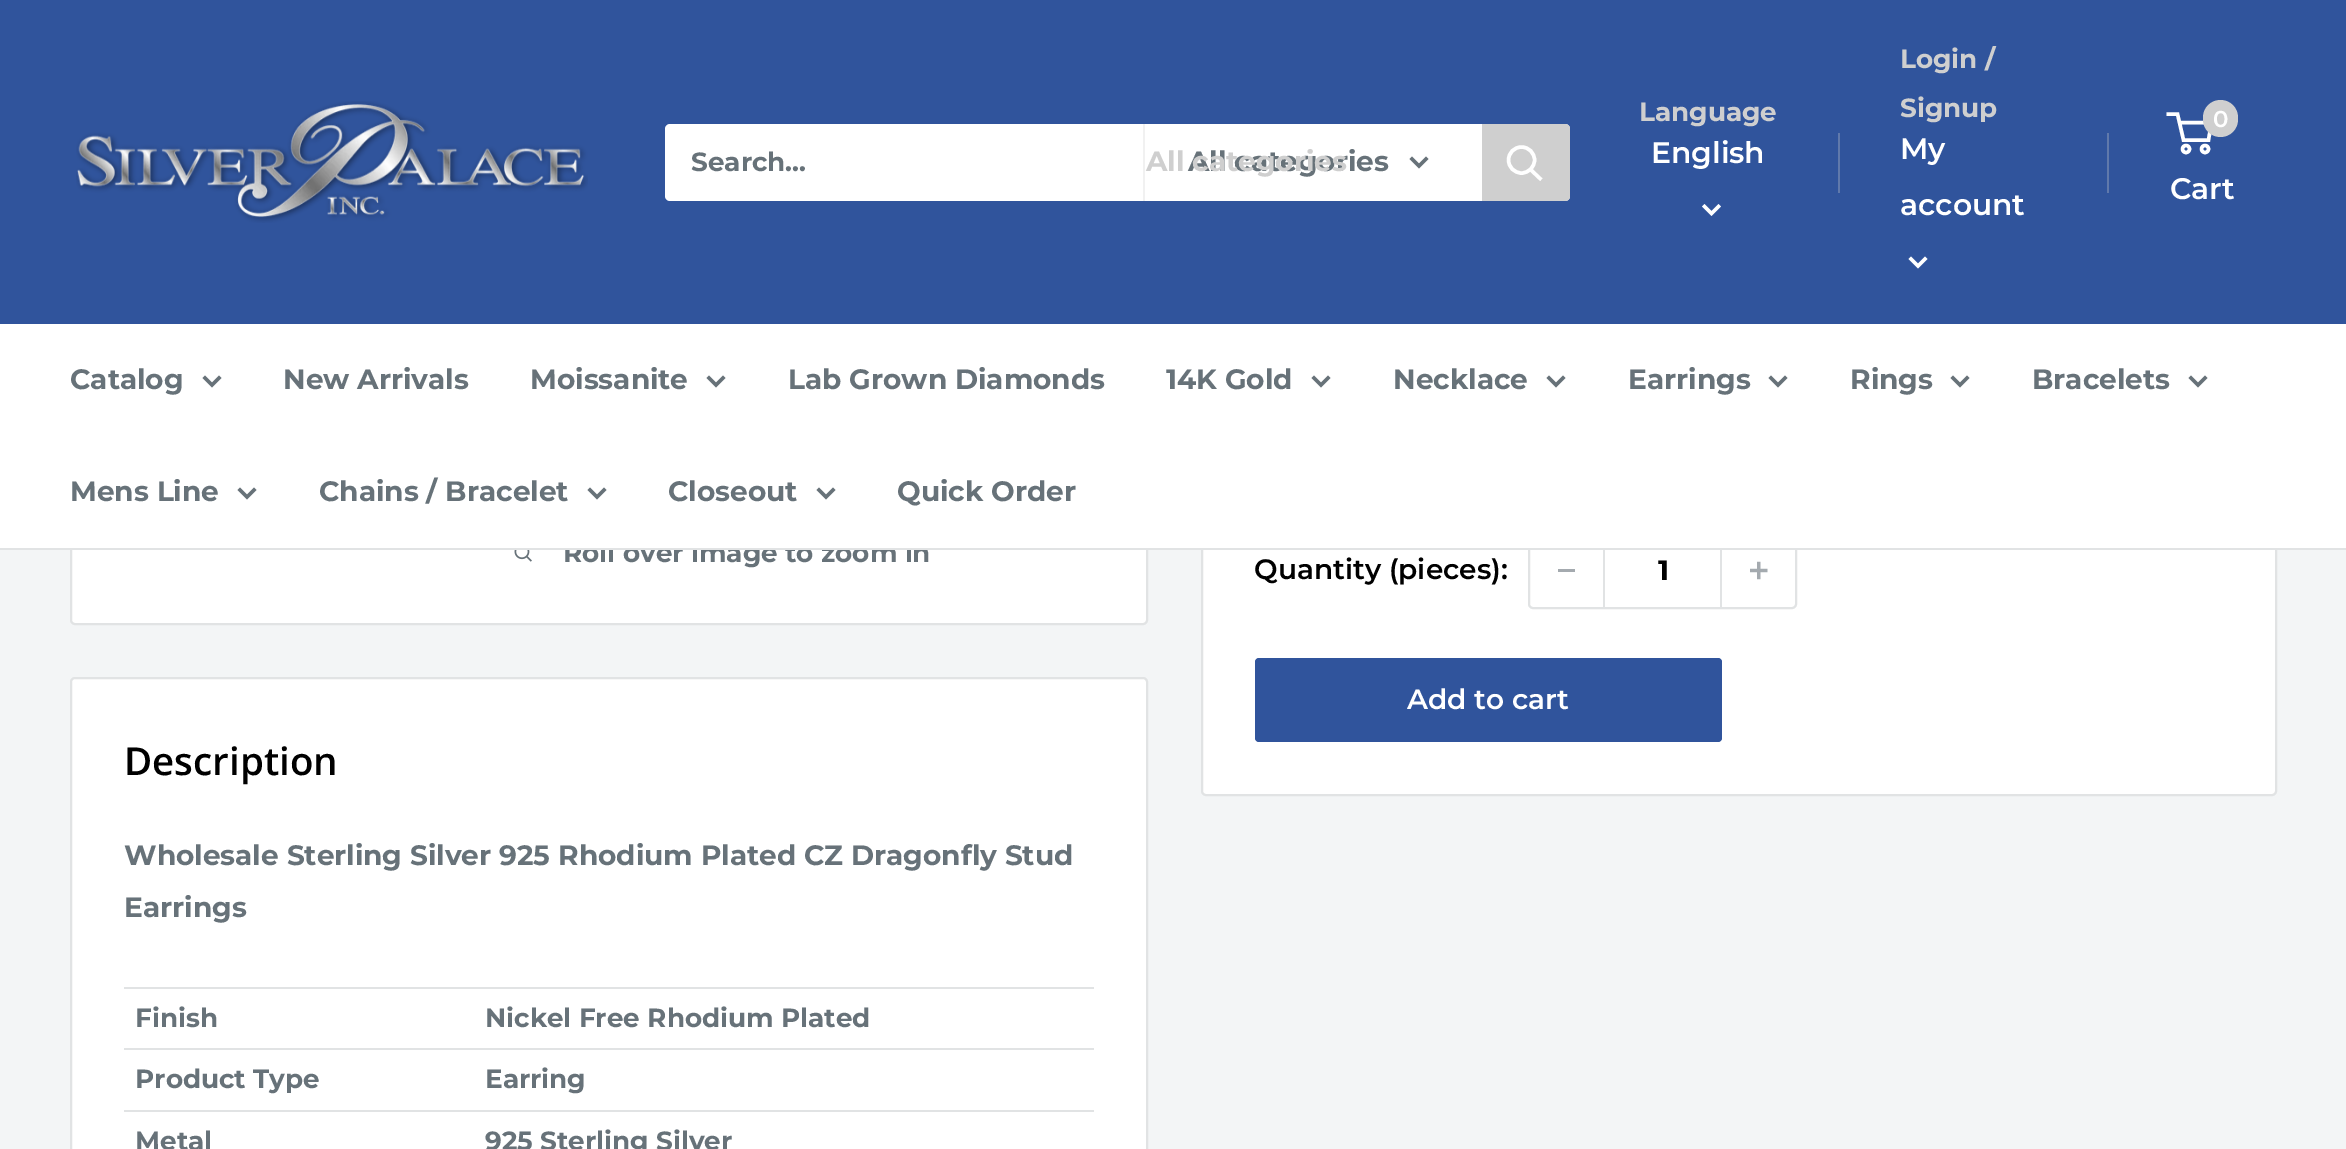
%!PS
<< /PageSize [2346 1149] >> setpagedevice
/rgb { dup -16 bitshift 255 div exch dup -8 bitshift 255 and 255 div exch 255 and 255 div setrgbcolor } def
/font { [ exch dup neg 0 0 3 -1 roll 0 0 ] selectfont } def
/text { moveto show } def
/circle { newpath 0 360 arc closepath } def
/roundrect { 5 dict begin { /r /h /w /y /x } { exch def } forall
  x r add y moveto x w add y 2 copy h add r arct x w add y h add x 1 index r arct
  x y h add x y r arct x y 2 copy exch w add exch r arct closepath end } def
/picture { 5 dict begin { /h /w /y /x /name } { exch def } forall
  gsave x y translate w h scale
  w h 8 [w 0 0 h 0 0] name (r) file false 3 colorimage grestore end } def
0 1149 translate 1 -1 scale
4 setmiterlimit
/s1 { /Montserrat-Bold 26.25 font 16#677279 rgb } def
/s2 { /Montserrat-Bold 28 font 16#677279 rgb } def
/s3 { /Montserrat-Bold 28 font 16#CFCFCF rgb } def
/s4 { /Montserrat-Bold 26.25 font 16#CFCFCF rgb } def
/s5 { /Montserrat-SemiBold 29.75 font 16#FFFFFF rgb } def
/s6 { /Montserrat-SemiBold 23 font 16#FFFFFF rgb } def
/s7 { /Montserrat-SemiBold 28 font 16#000000 rgb } def
/s8 { /Montserrat-Bold 28 font 16#000000 rgb } def
/s9 { /Montserrat-SemiBold 28 font 16#FFFFFF rgb } def
/s10 { /OpenSans-SemiBold 38.5 font 16#000000 rgb } def
16#F3F5F6 rgb
0 0 2346 1149 rectfill
16#FFFFFF rgb
71 -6 1076 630 4 roundrect gsave fill grestore
16#E1E3E4 rgb
2 setlinewidth
stroke
16#FFFFFF rgb
1202 1 1074 794 4 roundrect gsave fill grestore
16#E1E3E4 rgb
stroke
16#30549C rgb
0 0 2346 324 rectfill
(pic1.raw) 76 101 512 122 picture
16#FFFFFF rgb
665 124 905 77 5 roundrect fill
s1
(Search...) 691 171 text
16#F1F1F1 rgb
1143 124 2 77 rectfill
s2
(All categories) 1188 171 text
s3
(All categories) 1146 171 text
16#677279 rgb
3.5 setlinewidth
2 setlinecap
1426 159 moveto 1419 166 lineto 1412 159 lineto stroke
16#CFCFCF rgb
1482 124 moveto 1565 124 lineto 1568 124 1570 126 1570 129 curveto 1570 196 lineto 1570 199 1568 201 1565 201 curveto 1482 201 lineto closepath fill
16#FFFFFF rgb
1540 178.5 moveto 1531 170 lineto stroke
0 setlinecap
1521.5 160 13 circle stroke
s4
(Language) 1639 121 text
s5
(English) 1651 163 text
2 setlinecap
1718.5 206.5 moveto 1711.5 213.5 lineto 1704.5 206.5 lineto stroke
16#6079AB rgb
1838 133 2 60 rectfill
s4
(Login /) 1900 68 text
(Signup) 1900 117 text
s5
(My) 1900 159 text
(account) 1900 215 text
1925 259 moveto 1918 266 lineto 1911 259 lineto stroke
16#6079AB rgb
2107 133 2 60 rectfill
16#FFFFFF rgb
0 setlinecap
2186 149 3.5 circle stroke
2205 149 3.5 circle stroke
2179.5 122.5 moveto 2211.5 122.5 lineto 2208.5 140 lineto 2183.5 140 lineto 2177.5 114 lineto 2166.5 114 lineto stroke
16#CFCFCF rgb
2203 100 35 37 17.5 roundrect fill
s6
(0) 2213 127 text
s5
(Cart) 2170 199 text
s1
(Roll over image to zoom in) 563 562 text
16#E1E3E4 rgb
2 setlinewidth
1529 533 267 75 4 roundrect stroke
16#FFFFFF rgb
0 324 2346 224 rectfill
16#E1E3E4 rgb
0 548 2346 2 rectfill
s2
(Catalog) 70 389 text
3.5 setlinewidth
2 setlinecap
219 378 moveto 212 385 lineto 205 378 lineto stroke
(New Arrivals) 283 389 text
(Moissanite) 530 389 text
723 378 moveto 716 385 lineto 709 378 lineto stroke
(Lab Grown Diamonds) 788 389 text
(14K Gold) 1166 389 text
1328 378 moveto 1321 385 lineto 1314 378 lineto stroke
(Necklace) 1393 389 text
1563 378 moveto 1556 385 lineto 1549 378 lineto stroke
(Earrings) 1628 389 text
1785 378 moveto 1778 385 lineto 1771 378 lineto stroke
(Rings) 1850 389 text
1967 378 moveto 1960 385 lineto 1953 378 lineto stroke
(Bracelets) 2032 389 text
2205 378 moveto 2198 385 lineto 2191 378 lineto stroke
(Mens Line) 70 501 text
254 490 moveto 247 497 lineto 240 490 lineto stroke
(Chains / Bracelet) 319 501 text
604 490 moveto 597 497 lineto 590 490 lineto stroke
(Closeout) 668 501 text
833 490 moveto 826 497 lineto 819 490 lineto stroke
(Quick Order) 897 501 text
(pic2.raw) 514 550 18 12 picture
s7
(Quantity \(pieces\):) 1254 579 text
16#A4AAAF rgb
1558 569 17 3 rectfill
16#E1E3E4 rgb
1720 550 2 57 rectfill
1603 550 2 57 rectfill
s8
(1) 1658 580 text
(pic3.raw) 1750 561 18 19 picture
16#30549C rgb
1255 658 467 84 4 roundrect fill
s9
(Add to cart) 1407 709 text
71 678 1076 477 4 roundrect gsave fill grestore
16#E1E3E4 rgb
2 setlinewidth
0 setlinecap
stroke
s10
(Description) 124 775 text
s2
(Wholesale Sterling Silver 925 Rhodium Plated CZ Dragonfly Stud) 124 865 text
(Earrings) 124 917 text
16#E1E3E4 rgb
124 987 970 2 rectfill
s1
(Finish) 135 1027 text
(Nickel Free Rhodium Plated) 485 1027 text
16#E1E3E4 rgb
124 1048 970 2 rectfill
s1
(Product Type) 135 1088 text
(Earring) 485 1088 text
16#E1E3E4 rgb
124 1110 970 2 rectfill
s1
(Metal) 135 1150 text
(925 Sterling Silver) 485 1150 text
showpage
